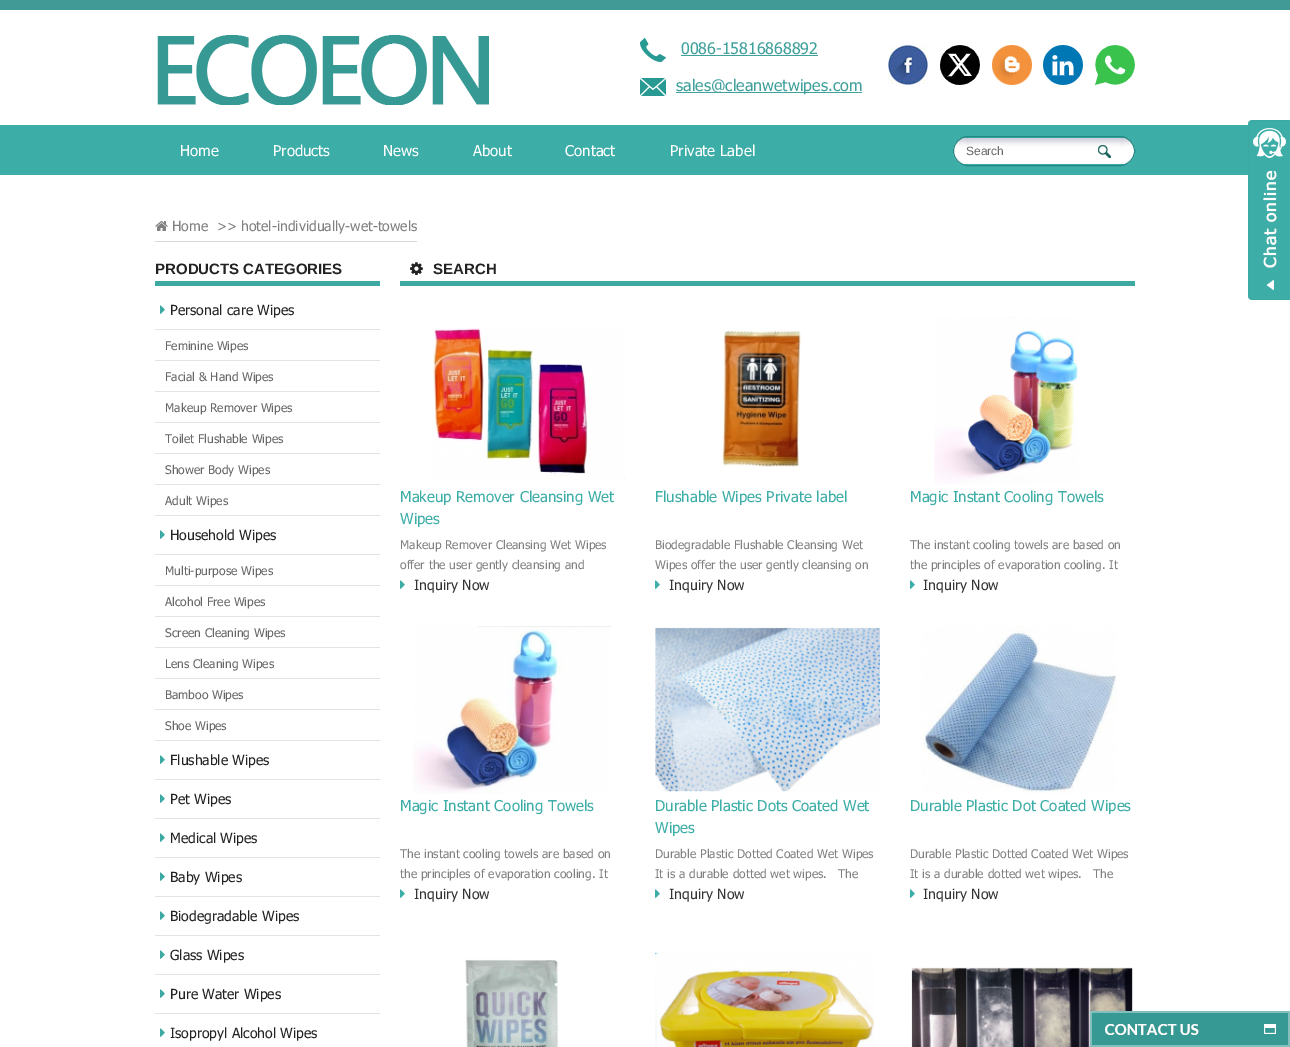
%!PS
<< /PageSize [1290 1047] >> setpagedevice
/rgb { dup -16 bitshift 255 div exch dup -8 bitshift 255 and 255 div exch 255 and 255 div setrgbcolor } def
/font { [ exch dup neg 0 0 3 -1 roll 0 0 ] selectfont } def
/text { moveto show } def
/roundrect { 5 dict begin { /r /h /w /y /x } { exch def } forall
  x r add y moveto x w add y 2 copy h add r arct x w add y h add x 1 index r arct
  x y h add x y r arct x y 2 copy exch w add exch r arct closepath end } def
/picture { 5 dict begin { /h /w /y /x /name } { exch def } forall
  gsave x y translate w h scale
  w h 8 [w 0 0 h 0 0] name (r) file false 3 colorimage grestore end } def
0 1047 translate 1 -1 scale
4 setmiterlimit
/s1 { /Tahoma-Regular 16 font 16#40A19C rgb } def
/s2 { /Tahoma-Regular 15 font 16#FFFFFF rgb } def
/s3 { /LiberationSans-Regular 12 font 16#666666 rgb } def
/s4 { /Tahoma-Regular 14 font 16#808080 rgb } def
/s5 { /LiberationSans-Bold 15 font 16#222222 rgb } def
/s6 { /Tahoma-Regular 14 font 16#222222 rgb } def
/s7 { /Tahoma-Regular 12 font 16#666666 rgb } def
/s8 { /Tahoma-Regular 15 font 16#3DADA7 rgb } def
/s9 { /Tahoma-Regular 12 font 16#808080 rgb } def
/s10 { /Tahoma-Regular 14 font 16#333333 rgb } def
16#FFFFFF rgb
0 0 1290 1047 rectfill
16#419A95 rgb
0 0 1290 10 rectfill
(pic1.raw) 157 35 332 70 picture
(pic2.raw) 640 38 26 24 picture
s1
(0086-15816868892) 681 54 text
681 55 137 1 rectfill
(pic3.raw) 640 78 26 18 picture
676 92 186 1 rectfill
(sales@cleanwetwipes.com) 676 91 text
(pic4.raw) 888 45 40 40 picture
(pic5.raw) 940 45 40 40 picture
(pic6.raw) 992 45 40 40 picture
(pic7.raw) 1043 45 40 40 picture
(pic8.raw) 1095 45 40 40 picture
16#3DADA7 rgb
0 125 1248 50 rectfill
s2
(Home) 180 156 text
(Products) 273 156 text
(News) 383 156 text
(About) 473 156 text
(Contact) 565 156 text
(Private Label) 670 156 text
(pic9.raw) 953 138 182 26 picture
16#208984 rgb
953.5 136.5 181 29 14.5 roundrect stroke
s3
(Search) 966 155 text
(pic10.raw) 1098 145 13 13 picture
(pic11.raw) 1248 120 42 180 picture
16#D8D8D8 rgb
155 241 262 1 rectfill
(pic12.raw) 155 221 13 10 picture
s4
(Home) 172 231 text
(>>) 217 231 text
(hotel-individually-wet-towels) 241 231 text
16#3EA8A3 rgb
155 281 225 5 rectfill
s5
(PRODUCTS CATEGORIES) 155 274 text
16#E3E3E3 rgb
155 329 225 1 rectfill
(pic13.raw) 160 305 5 9 picture
s6
(Personal care Wipes) 170 315 text
16#E3E3E3 rgb
155 360 225 1 rectfill
s7
(Feminine Wipes) 165 350 text
16#E3E3E3 rgb
155 391 225 1 rectfill
s7
(Facial & Hand Wipes) 165 381 text
16#E3E3E3 rgb
155 422 225 1 rectfill
s7
(Makeup Remover Wipes) 165 412 text
16#E3E3E3 rgb
155 453 225 1 rectfill
s7
(Toilet Flushable Wipes) 165 443 text
16#E3E3E3 rgb
155 484 225 1 rectfill
s7
(Shower Body Wipes) 165 474 text
16#E3E3E3 rgb
155 515 225 1 rectfill
s7
(Adult Wipes) 165 505 text
16#E3E3E3 rgb
155 554 225 1 rectfill
(pic13.raw) 160 530 5 9 picture
s6
(Household Wipes) 170 540 text
16#E3E3E3 rgb
155 585 225 1 rectfill
s7
(Multi-purpose Wipes) 165 575 text
16#E3E3E3 rgb
155 616 225 1 rectfill
s7
(Alcohol Free Wipes) 165 606 text
16#E3E3E3 rgb
155 647 225 1 rectfill
s7
(Screen Cleaning Wipes) 165 637 text
16#E3E3E3 rgb
155 678 225 1 rectfill
s7
(Lens Cleaning Wipes) 165 668 text
16#E3E3E3 rgb
155 709 225 1 rectfill
s7
(Bamboo Wipes) 165 699 text
16#E3E3E3 rgb
155 740 225 1 rectfill
s7
(Shoe Wipes) 165 730 text
16#E3E3E3 rgb
155 779 225 1 rectfill
(pic13.raw) 160 755 5 9 picture
s6
(Flushable Wipes) 170 765 text
16#E3E3E3 rgb
155 818 225 1 rectfill
(pic13.raw) 160 794 5 9 picture
s6
(Pet Wipes) 170 804 text
16#E3E3E3 rgb
155 857 225 1 rectfill
(pic13.raw) 160 833 5 9 picture
s6
(Medical Wipes) 170 843 text
16#E3E3E3 rgb
155 896 225 1 rectfill
(pic13.raw) 160 872 5 9 picture
s6
(Baby Wipes) 170 882 text
16#E3E3E3 rgb
155 935 225 1 rectfill
(pic13.raw) 160 911 5 9 picture
s6
(Biodegradable Wipes) 170 921 text
16#E3E3E3 rgb
155 974 225 1 rectfill
(pic13.raw) 160 950 5 9 picture
s6
(Glass Wipes) 170 960 text
16#E3E3E3 rgb
155 1013 225 1 rectfill
(pic13.raw) 160 989 5 9 picture
s6
(Pure Water Wipes) 170 999 text
(pic13.raw) 160 1028 5 9 picture
(Isopropyl Alcohol Wipes) 170 1038 text
16#3EA8A3 rgb
400 281 735 5 rectfill
(pic14.raw) 410 262 13 14 picture
s5
(SEARCH) 433 274 text
(pic15.raw) 433 328 192 152 picture
s8
(Makeup Remover Cleansing Wet) 400 502 text
(Wipes) 400 524 text
s9
(Makeup Remover Cleansing Wet Wipes) 400 549 text
(offer the user gently cleansing and) 400 569 text
(pic16.raw) 400 580 5 9 picture
s10
(Inquiry Now) 414 590 text
(pic17.raw) 721 330 80 137 picture
s8
(Flushable Wipes Private label) 655 502 text
s9
(Biodegradable Flushable Cleansing Wet) 655 549 text
(Wipes offer the user gently cleansing on) 655 569 text
(pic16.raw) 655 580 5 9 picture
s10
(Inquiry Now) 669 590 text
(pic18.raw) 934 316 144 168 picture
s8
(Magic Instant Cooling Towels) 910 502 text
s9
(The instant cooling towels are based on) 910 549 text
(the principles of evaporation cooling. It) 910 569 text
(pic16.raw) 910 580 5 9 picture
s10
(Inquiry Now) 923 590 text
(pic19.raw) 413 626 198 168 picture
s8
(Magic Instant Cooling Towels) 400 811 text
s9
(The instant cooling towels are based on) 400 858 text
(the principles of evaporation cooling. It) 400 878 text
(pic16.raw) 400 889 5 9 picture
s10
(Inquiry Now) 414 899 text
(pic20.raw) 655 627 225 165 picture
s8
(Durable Plastic Dots Coated Wet) 655 811 text
(Wipes) 655 833 text
s9
(Durable Plastic Dotted Coated Wet Wipes) 655 858 text
(It is a durable dotted wet wipes.   The) 655 878 text
(pic16.raw) 655 889 5 9 picture
s10
(Inquiry Now) 669 899 text
(pic21.raw) 922 626 195 168 picture
s8
(Durable Plastic Dot Coated Wipes) 910 811 text
s9
(Durable Plastic Dotted Coated Wet Wipes) 910 858 text
(It is a durable dotted wet wipes.   The) 910 878 text
(pic16.raw) 910 889 5 9 picture
s10
(Inquiry Now) 923 899 text
(pic22.raw) 465 959 94 88 picture
(pic23.raw) 655 952 220 95 picture
(pic24.raw) 911 967 222 80 picture
(pic25.raw) 1090 1011 200 36 picture
showpage
